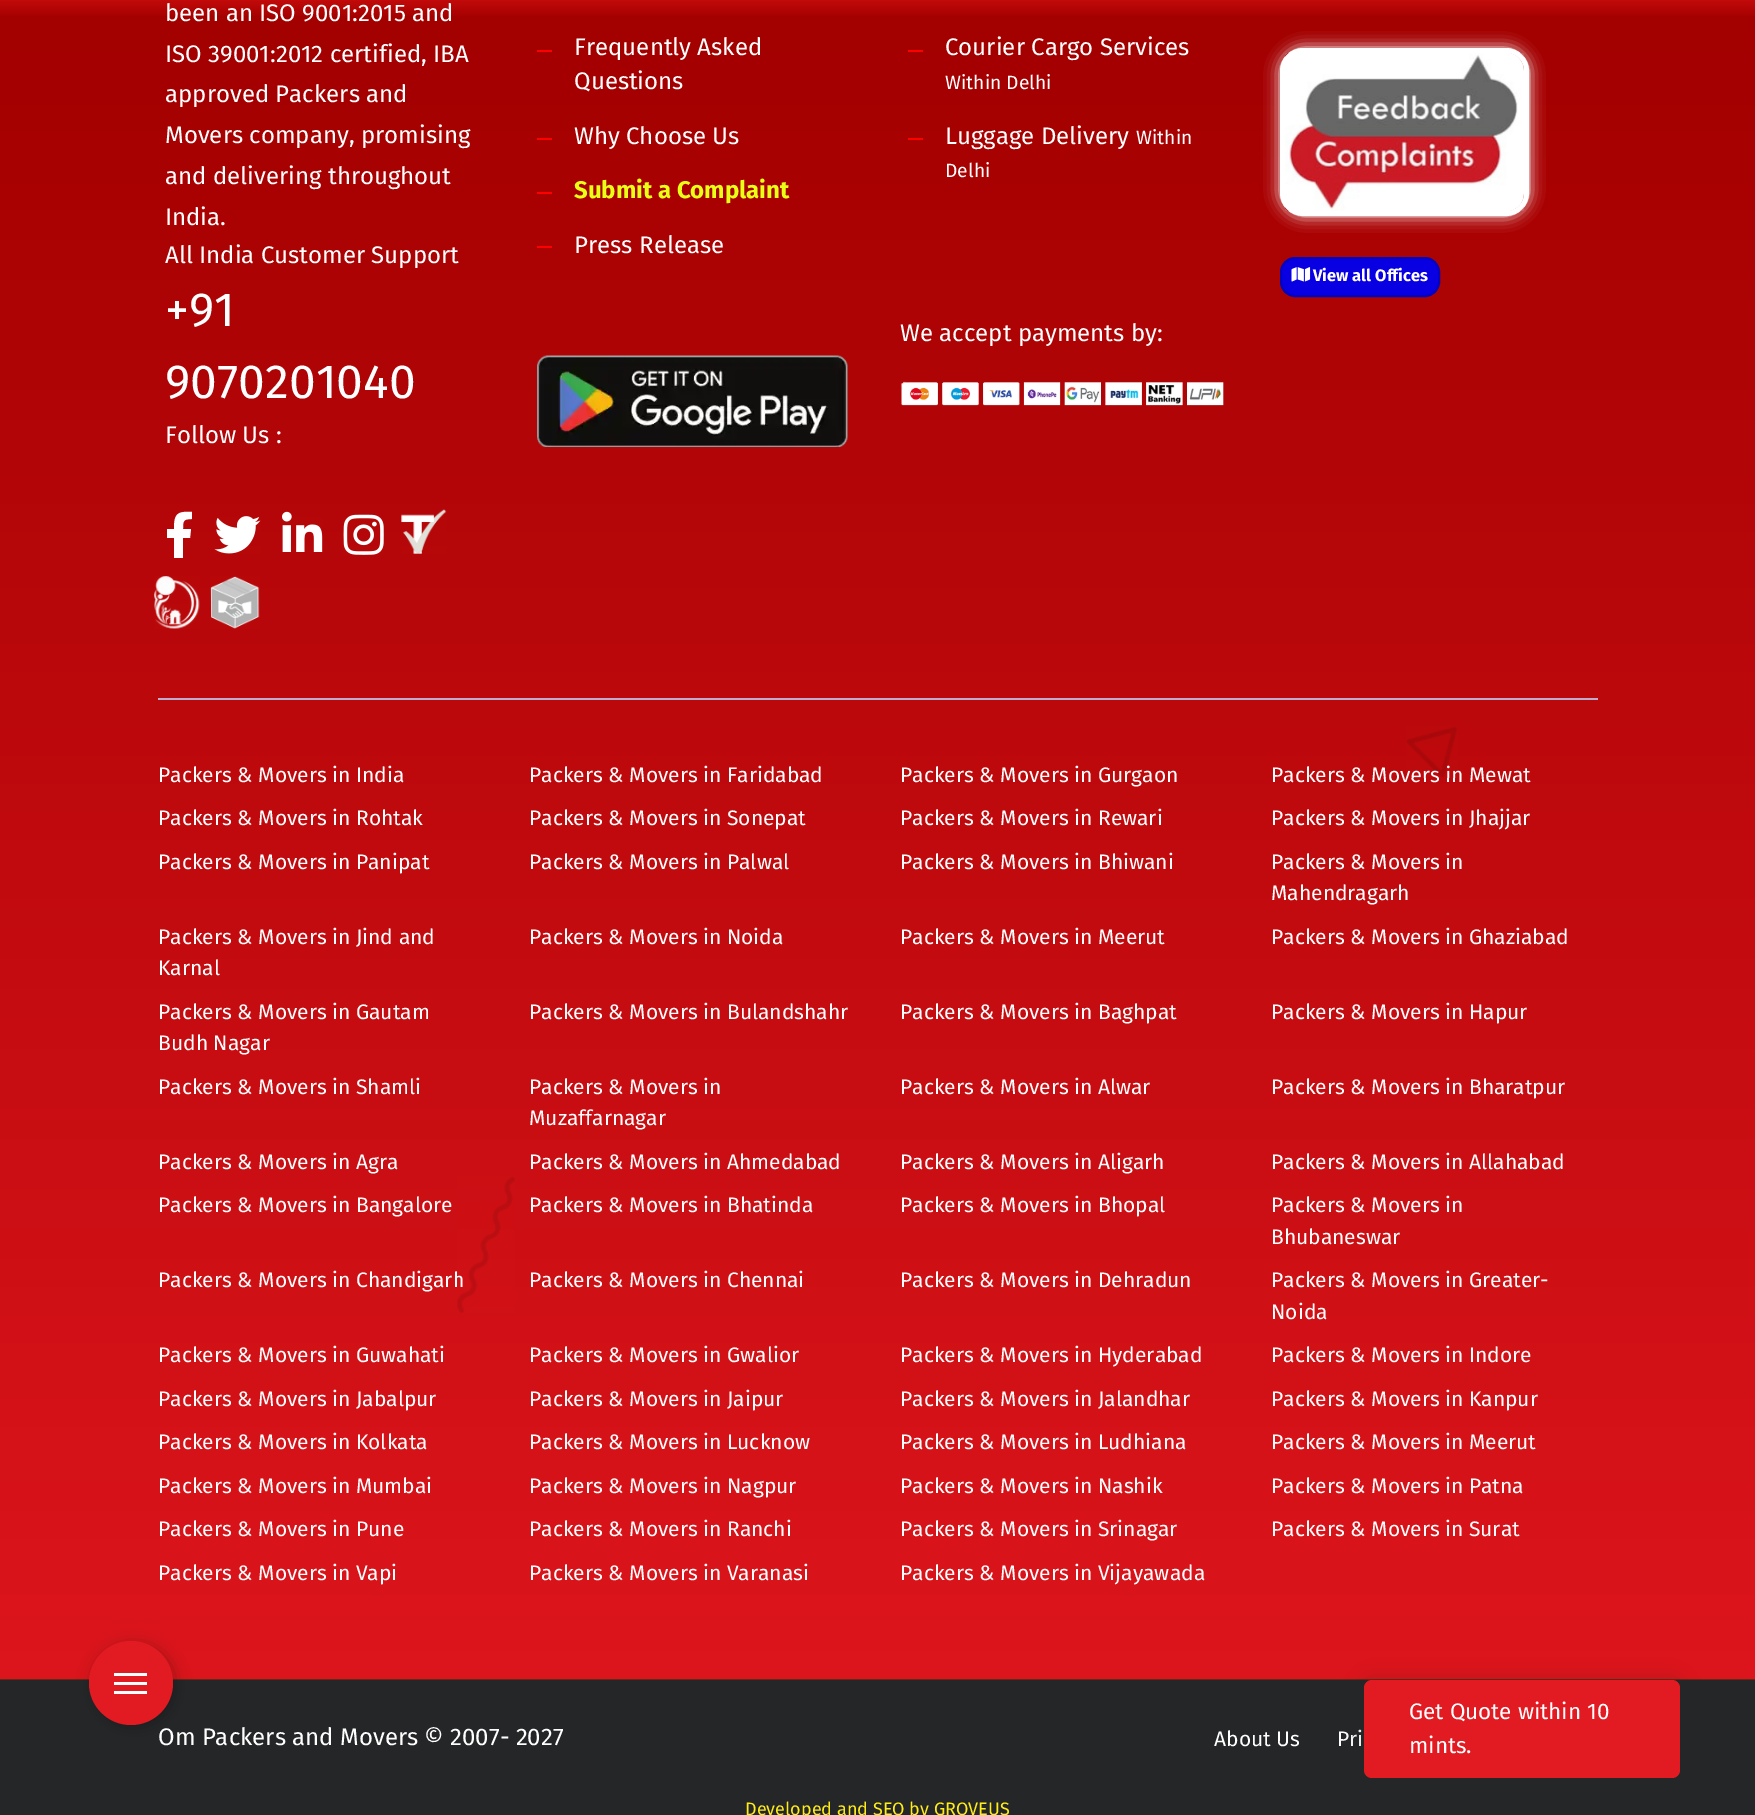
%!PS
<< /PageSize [1755 1815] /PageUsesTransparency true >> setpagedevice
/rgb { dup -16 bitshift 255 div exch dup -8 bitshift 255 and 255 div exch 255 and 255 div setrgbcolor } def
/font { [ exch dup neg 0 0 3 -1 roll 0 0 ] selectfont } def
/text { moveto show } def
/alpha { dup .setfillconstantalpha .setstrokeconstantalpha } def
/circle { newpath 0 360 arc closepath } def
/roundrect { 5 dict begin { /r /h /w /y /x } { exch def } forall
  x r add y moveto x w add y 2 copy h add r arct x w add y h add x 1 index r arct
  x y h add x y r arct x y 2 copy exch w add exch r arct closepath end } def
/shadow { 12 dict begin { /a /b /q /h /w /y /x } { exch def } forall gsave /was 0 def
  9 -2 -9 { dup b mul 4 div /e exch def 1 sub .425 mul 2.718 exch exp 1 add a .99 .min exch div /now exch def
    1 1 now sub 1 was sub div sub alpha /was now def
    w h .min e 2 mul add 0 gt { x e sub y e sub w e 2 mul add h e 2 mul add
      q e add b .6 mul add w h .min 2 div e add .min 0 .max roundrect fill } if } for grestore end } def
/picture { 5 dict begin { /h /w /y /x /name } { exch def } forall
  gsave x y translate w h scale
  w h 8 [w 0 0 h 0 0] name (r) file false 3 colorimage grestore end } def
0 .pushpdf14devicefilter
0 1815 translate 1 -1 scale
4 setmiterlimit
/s1 { /FiraSans-Regular 24 font 16#FFFFFF rgb } def
/s2 { /FiraSans-Regular 48 font 16#FFFFFF rgb } def
/s3 { /FiraSans-Bold 24 font 16#E7FF17 rgb } def
/s4 { /FiraSans-Regular 19.25 font 16#FFFFFF rgb } def
/s5 { /FiraSans-Bold 16.5 font 16#FFFFFF rgb } def
/s6 { /FiraSans-Regular 21 font 16#FFFFFF rgb } def
/s7 { /FiraSans-Regular 18 font 16#FFED18 rgb } def
/s8 { /FiraSans-Regular 22.5 font 16#FFFFFF rgb } def
16#FFFFFF rgb
0 0 1755 1815 rectfill
gsave 0 0 moveto 1755 0 lineto 1755 1679 lineto 0 1679 lineto closepath clip newpath
<< /ShadingType 2 /ColorSpace /DeviceRGB /Coords [878 1815 878 0] /Extend [true true] /Function << /FunctionType 3 /Domain [0 1] /Functions [<< /FunctionType 2 /Domain [0 1] /C0 [0.886 0.09 0.118] /C1 [0.639 0 0] /N 1 >> << /FunctionType 2 /Domain [0 1] /C0 [0.639 0 0] /C1 [0.761 0.039 0.039] /N 1 >>] /Bounds [0.99] /Encode [0 1 0 1] >> >> shfill grestore
16#632816 rgb
0 1679 1755 1 rectfill
16#252628 rgb
0 1680 1755 135 rectfill
16#0A0A0A rgb
92 1644 84 84 42 7.5 0.3 shadow
16#E21B22 rgb
131 1683 42 circle fill
16#FFFFFF rgb
114 1673 33 3 rectfill
114 1682 33 3 rectfill
114 1691 33 3 rectfill
s1
(been an ISO 9001:2015 and) 165 21 text
(ISO 39001:2012 certified, IBA) 165 62 text
(approved Packers and) 165 102 text
(Movers company, promising) 165 143 text
(and delivering throughout) 165 184 text
(India.) 165 225 text
(All India Customer Support) 165 263 text
s2
(+91) 165 326 text
(9070201040) 165 398 text
s1
(Follow Us :) 165 443 text
190 538 moveto 183 538 lineto 183 558 lineto 174 558 lineto 174 538 lineto 167 538 lineto 167 529 lineto 174 529 lineto 174 514 177 511 192 512 curveto 192 519 lineto 183 519 183 521 183 529 curveto 191 529 lineto closepath fill
(pic1.raw) 214 516 47 38 picture
(pic2.raw) 282 511 41 41 picture
(pic3.raw) 343 514 41 41 picture
(pic4.raw) 401 509 46 45 picture
(pic5.raw) 154 576 46 53 picture
(pic6.raw) 210 576 50 53 picture
16#FF0000 rgb
537 50 15 2 rectfill
s1
(Frequently Asked) 574 55 text
(Questions) 574 89 text
16#FF0000 rgb
537 138 15 2 rectfill
s1
(Why Choose Us) 574 144 text
16#FF0000 rgb
537 192 15 2 rectfill
s3
(Submit a Complaint) 574 198 text
16#FF0000 rgb
537 246 15 2 rectfill
s1
(Press Release) 574 253 text
(pic7.raw) 537 355 311 92 picture
16#FF0000 rgb
908 50 15 2 rectfill
s1
(Courier Cargo Services) 945 55 text
s4
(Within Delhi) 945 89 text
16#FF0000 rgb
908 138 15 2 rectfill
s1
(Luggage Delivery) 945 144 text
s4
(Within) 1136 144 text
(Delhi) 945 177 text
s1
(We accept payments by:) 900 341 text
(pic8.raw) 900 381 324 25 picture
1280 48 249 168 23 7.5 1 shadow
5 setlinewidth
1282.5 50.5 244 163 20.5 roundrect stroke
(pic9.raw) 1285 53 239 158 picture
16#0800E3 rgb
1281 258 158 38 14 roundrect gsave fill grestore
16#0400BB rgb
2 setlinewidth
stroke
(pic10.raw) 1291 267 20 15 picture
s5
(View all Offices) 1313 281 text
16#BCADD1 rgb
158 698 1440 2 rectfill
s6
(Packers & Movers in India) 158 782 text
(Packers & Movers in Faridabad) 529 782 text
(Packers & Movers in Gurgaon) 900 782 text
(Packers & Movers in Mewat) 1271 782 text
(pic11.raw) 1406 726 52 52 picture
(Packers & Movers in Rohtak) 158 825 text
(Packers & Movers in Sonepat) 529 825 text
(Packers & Movers in Rewari) 900 825 text
(Packers & Movers in Jhajjar) 1271 825 text
(Packers & Movers in Panipat) 158 869 text
(Packers & Movers in Palwal) 529 869 text
(Packers & Movers in Bhiwani) 900 869 text
(Packers & Movers in) 1271 869 text
(Mahendragarh) 1271 900 text
(Packers & Movers in Jind and) 158 944 text
(Karnal) 158 975 text
(Packers & Movers in Noida) 529 944 text
(Packers & Movers in Meerut) 900 944 text
(Packers & Movers in Ghaziabad) 1271 944 text
(Packers & Movers in Gautam) 158 1019 text
(Budh Nagar) 158 1050 text
(Packers & Movers in Bulandshahr) 529 1019 text
(Packers & Movers in Baghpat) 900 1019 text
(Packers & Movers in Hapur) 1271 1019 text
(Packers & Movers in Shamli) 158 1094 text
(Packers & Movers in) 529 1094 text
(Muzaffarnagar) 529 1125 text
(Packers & Movers in Alwar) 900 1094 text
(Packers & Movers in Bharatpur) 1271 1094 text
(Packers & Movers in Agra) 158 1169 text
(Packers & Movers in Ahmedabad) 529 1169 text
(Packers & Movers in Aligarh) 900 1169 text
(Packers & Movers in Allahabad) 1271 1169 text
(Packers & Movers in Bangalore) 158 1212 text
(Packers & Movers in Chandigarh) 158 1287 text
(pic12.raw) 457 1176 58 137 picture
(Packers & Movers in Bhatinda) 529 1212 text
(Packers & Movers in Bhopal) 900 1212 text
(Packers & Movers in) 1271 1212 text
(Bhubaneswar) 1271 1244 text
(Packers & Movers in Chennai) 529 1287 text
(Packers & Movers in Dehradun) 900 1287 text
(Packers & Movers in Greater-) 1271 1287 text
(Noida) 1271 1319 text
(Packers & Movers in Guwahati) 158 1362 text
(Packers & Movers in Gwalior) 529 1362 text
(Packers & Movers in Hyderabad) 900 1362 text
(Packers & Movers in Indore) 1271 1362 text
(Packers & Movers in Jabalpur) 158 1406 text
(Packers & Movers in Jaipur) 529 1406 text
(Packers & Movers in Jalandhar) 900 1406 text
(Packers & Movers in Kanpur) 1271 1406 text
(Packers & Movers in Kolkata) 158 1449 text
(Packers & Movers in Lucknow) 529 1449 text
(Packers & Movers in Ludhiana) 900 1449 text
(Packers & Movers in Meerut) 1271 1449 text
(Packers & Movers in Mumbai) 158 1493 text
(Packers & Movers in Nagpur) 529 1493 text
(Packers & Movers in Nashik) 900 1493 text
(Packers & Movers in Patna) 1271 1493 text
(Packers & Movers in Pune) 158 1536 text
(Packers & Movers in Ranchi) 529 1536 text
(Packers & Movers in Srinagar) 900 1536 text
(Packers & Movers in Surat) 1271 1536 text
(Packers & Movers in Vapi) 158 1580 text
(Packers & Movers in Varanasi) 529 1580 text
(Packers & Movers in Vijayawada) 900 1580 text
s1
(Om Packers and Movers © 2007- 2027) 158 1745 text
s6
(About Us) 1214 1746 text
(Pri) 1337 1746 text
s7
(Developed and SEO by GROVEUS) 745 1815 text
16#202124 rgb
1364 1682 316 97 8 11 0.28 shadow
16#E21B22 rgb
1364 1680 316 98 8 roundrect fill
s8
(Get Quote within 10) 1409 1719 text
(mints.) 1409 1753 text
.poppdf14devicefilter showpage
